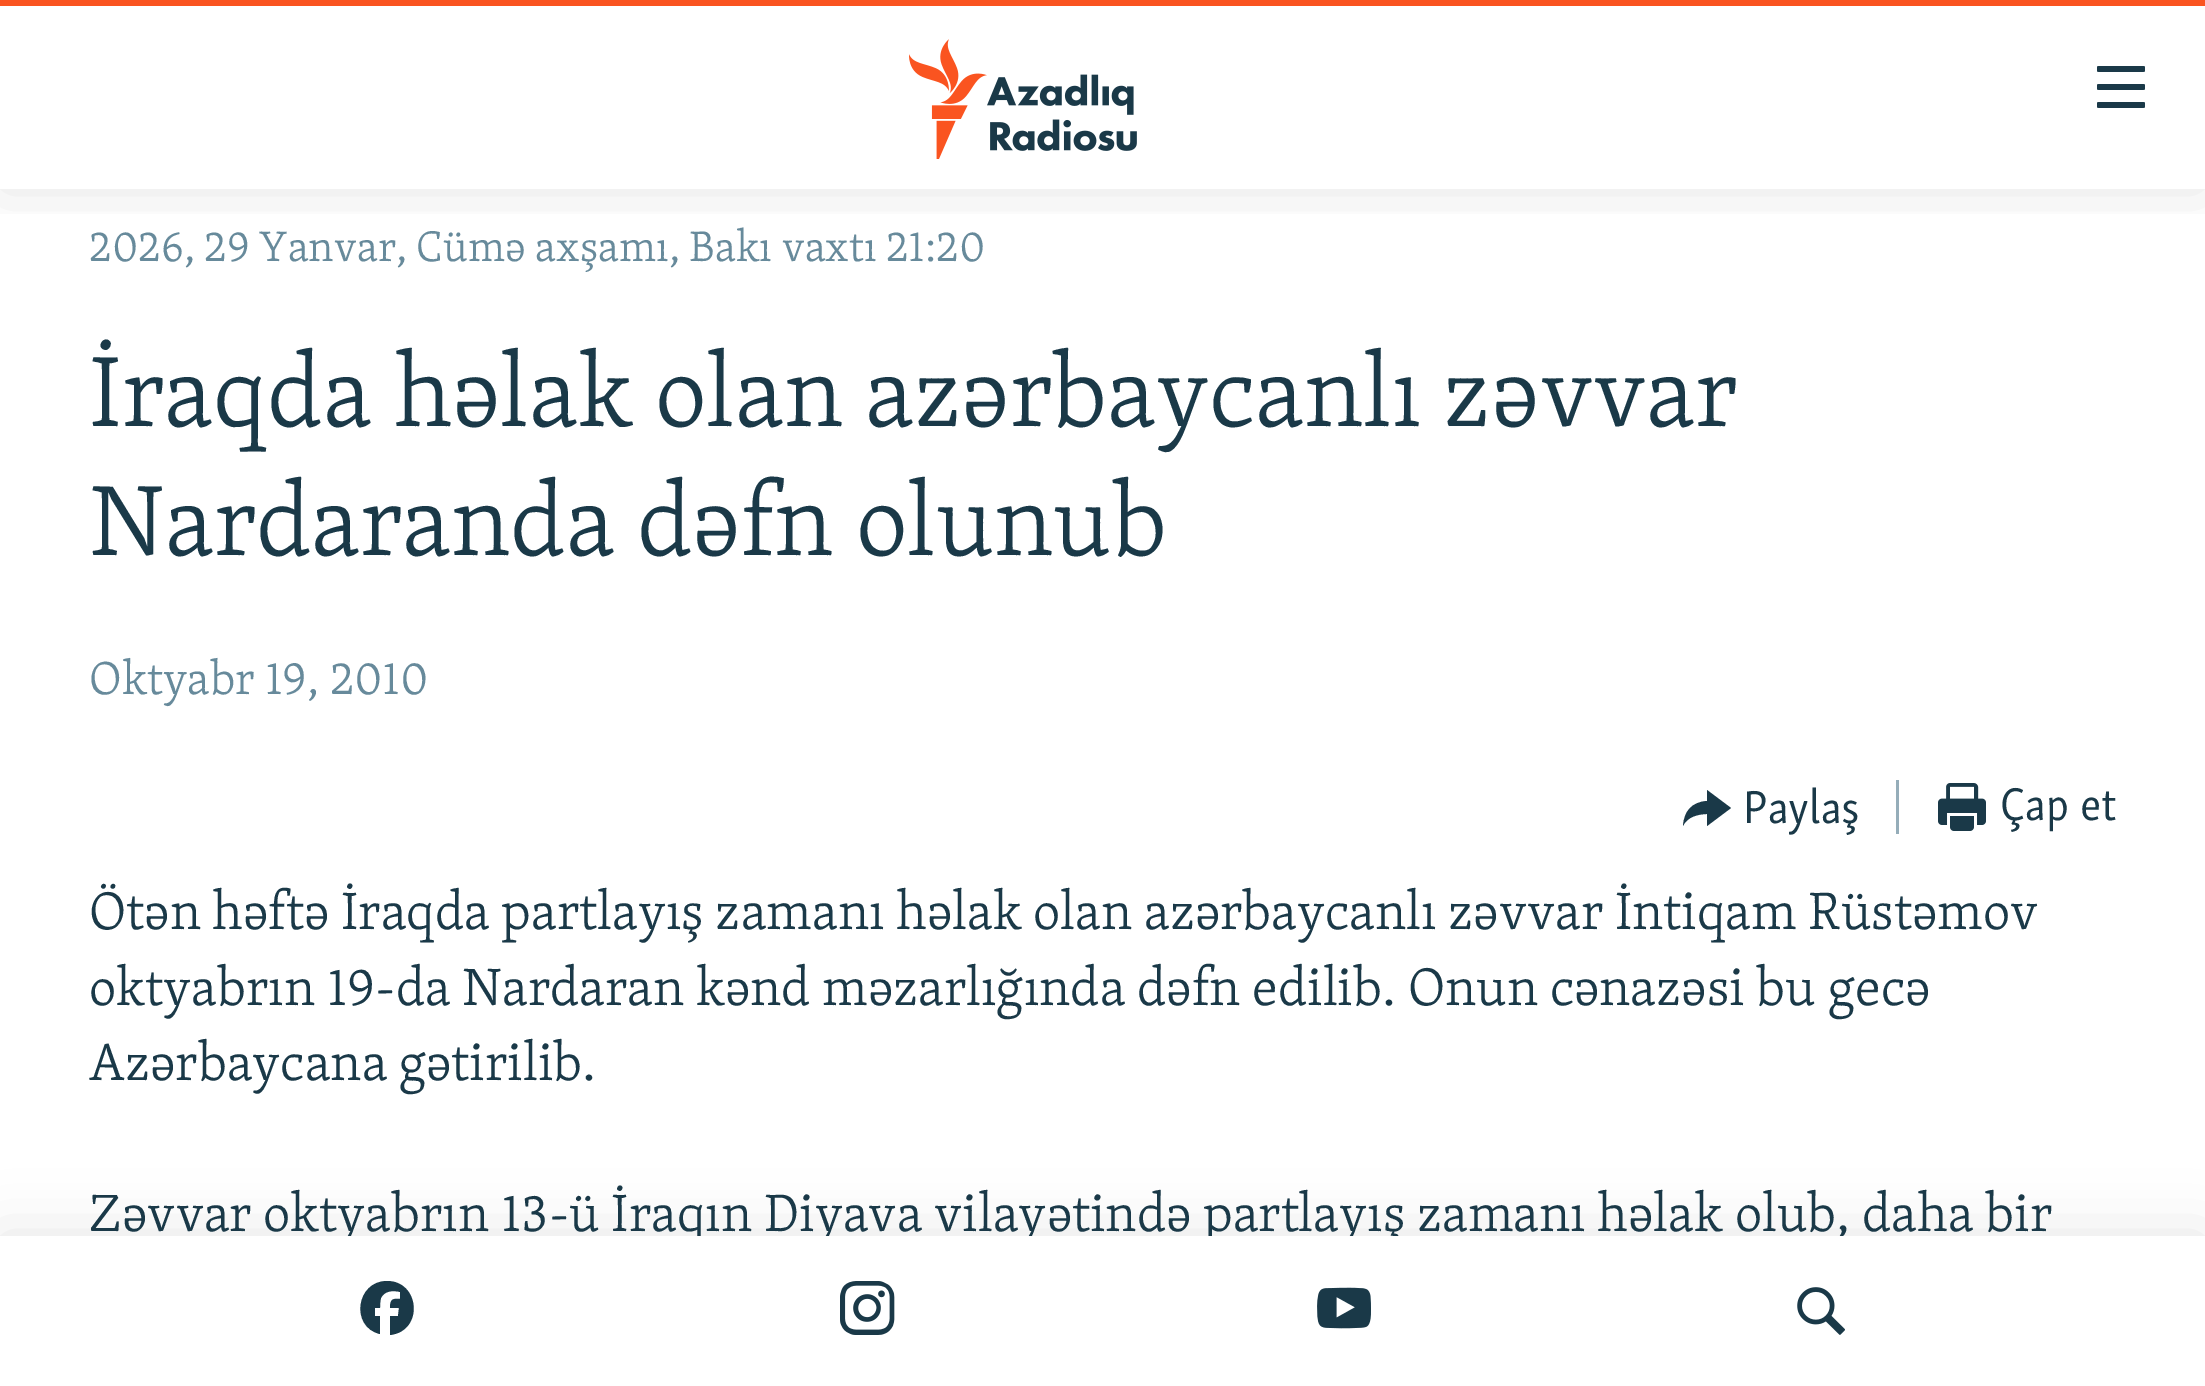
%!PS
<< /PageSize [2205 1386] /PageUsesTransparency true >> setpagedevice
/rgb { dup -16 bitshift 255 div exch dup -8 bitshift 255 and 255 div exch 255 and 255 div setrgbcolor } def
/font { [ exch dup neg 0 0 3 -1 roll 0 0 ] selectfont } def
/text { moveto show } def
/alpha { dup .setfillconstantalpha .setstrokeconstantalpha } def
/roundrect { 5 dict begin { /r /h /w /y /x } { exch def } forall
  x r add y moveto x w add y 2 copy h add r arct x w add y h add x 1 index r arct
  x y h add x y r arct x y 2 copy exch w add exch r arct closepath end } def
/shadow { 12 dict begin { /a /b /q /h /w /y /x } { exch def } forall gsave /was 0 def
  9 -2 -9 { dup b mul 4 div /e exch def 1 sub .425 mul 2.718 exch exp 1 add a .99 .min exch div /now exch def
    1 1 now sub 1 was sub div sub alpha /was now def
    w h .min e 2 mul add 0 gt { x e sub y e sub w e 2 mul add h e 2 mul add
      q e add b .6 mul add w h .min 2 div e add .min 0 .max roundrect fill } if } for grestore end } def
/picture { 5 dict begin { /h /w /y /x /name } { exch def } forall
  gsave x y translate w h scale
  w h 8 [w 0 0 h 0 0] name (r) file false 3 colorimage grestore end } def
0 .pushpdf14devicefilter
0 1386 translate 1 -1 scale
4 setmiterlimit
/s1 { /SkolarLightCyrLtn-Light 54 font 16#1A3948 rgb } def
/s2 { /SkolarLightCyrLtn-Light 43.9 font 16#678A9B rgb } def
/s3 { /SkolarLightCyrLtn-Light 102.6 font 16#1A3948 rgb } def
/s4 { /SkolarLightCyrLtn-Light 47.25 font 16#678A9B rgb } def
/s5 { /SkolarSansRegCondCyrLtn-Regular 47.25 font 16#1A3948 rgb } def
16#FFFFFF rgb
0 0 2205 1386 rectfill
gsave
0 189 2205 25 rectclip
16#000000 rgb
0 0 2205 189 0 30 0.1 shadow
grestore
16#FA5420 rgb
0 0 2205 6 rectfill
(pic1.raw) 909 39 228 120 picture
(pic2.raw) 2097 66 48 42 picture
16#000000 rgb
0 1236 2205 150 0 30 0.1 shadow
s1
(Zəvvar oktyabrın 13-ü İraqın Diyava vilayətində partlayış zamanı həlak olub, daha bir) 89 1231 text
16#FFFFFF rgb
0 1236 2205 150 rectfill
16#1A3948 rgb
387 1281 moveto 356 1281 350 1327 380 1334 curveto 380 1316 lineto 375 1316 lineto 375 1308 lineto 380 1308 lineto 380 1305 380 1302 381 1298 curveto 384 1291 393 1290 400 1292 curveto 400 1299 lineto 392 1298 390 1300 390 1308 curveto 399 1308 lineto 398 1316 lineto 390 1316 lineto 390 1335 lineto 424 1331 420 1281 387 1281 curveto closepath fill
(pic3.raw) 840 1281 55 54 picture
(pic4.raw) 1317 1287 54 42 picture
(pic5.raw) 1797 1287 48 48 picture
s2
(2026, 29 Yanvar, Cümə axşamı, Bakı vaxtı 21:20) 89 261 text
s3
(İraqda həlak olan azərbaycanlı zəvvar) 89 426 text
(Nardaranda dəfn olunub) 89 555 text
s4
(Oktyabr 19, 2010) 89 694 text
16#1A3948 rgb
1683 826 moveto 1684 811 1692 802 1707 801 curveto 1707 790 lineto 1731 808 lineto 1707 826 lineto 1707 814 lineto 1698 814 1687 817 1683 826 curveto closepath fill
s5
(Paylaş) 1743 823 text
16#95ADB9 rgb
1896 780 3 54 rectfill
(pic6.raw) 1938 783 48 48 picture
s5
(Çap et) 2000 820 text
s1
(Ötən həftə İraqda partlayış zamanı həlak olan azərbaycanlı zəvvar İntiqam Rüstəmov) 89 929 text
(oktyabrın 19-da Nardaran kənd məzarlığında dəfn edilib. Onun cənazəsi bu gecə) 89 1005 text
(Azərbaycana gətirilib.) 89 1080 text
.poppdf14devicefilter showpage
